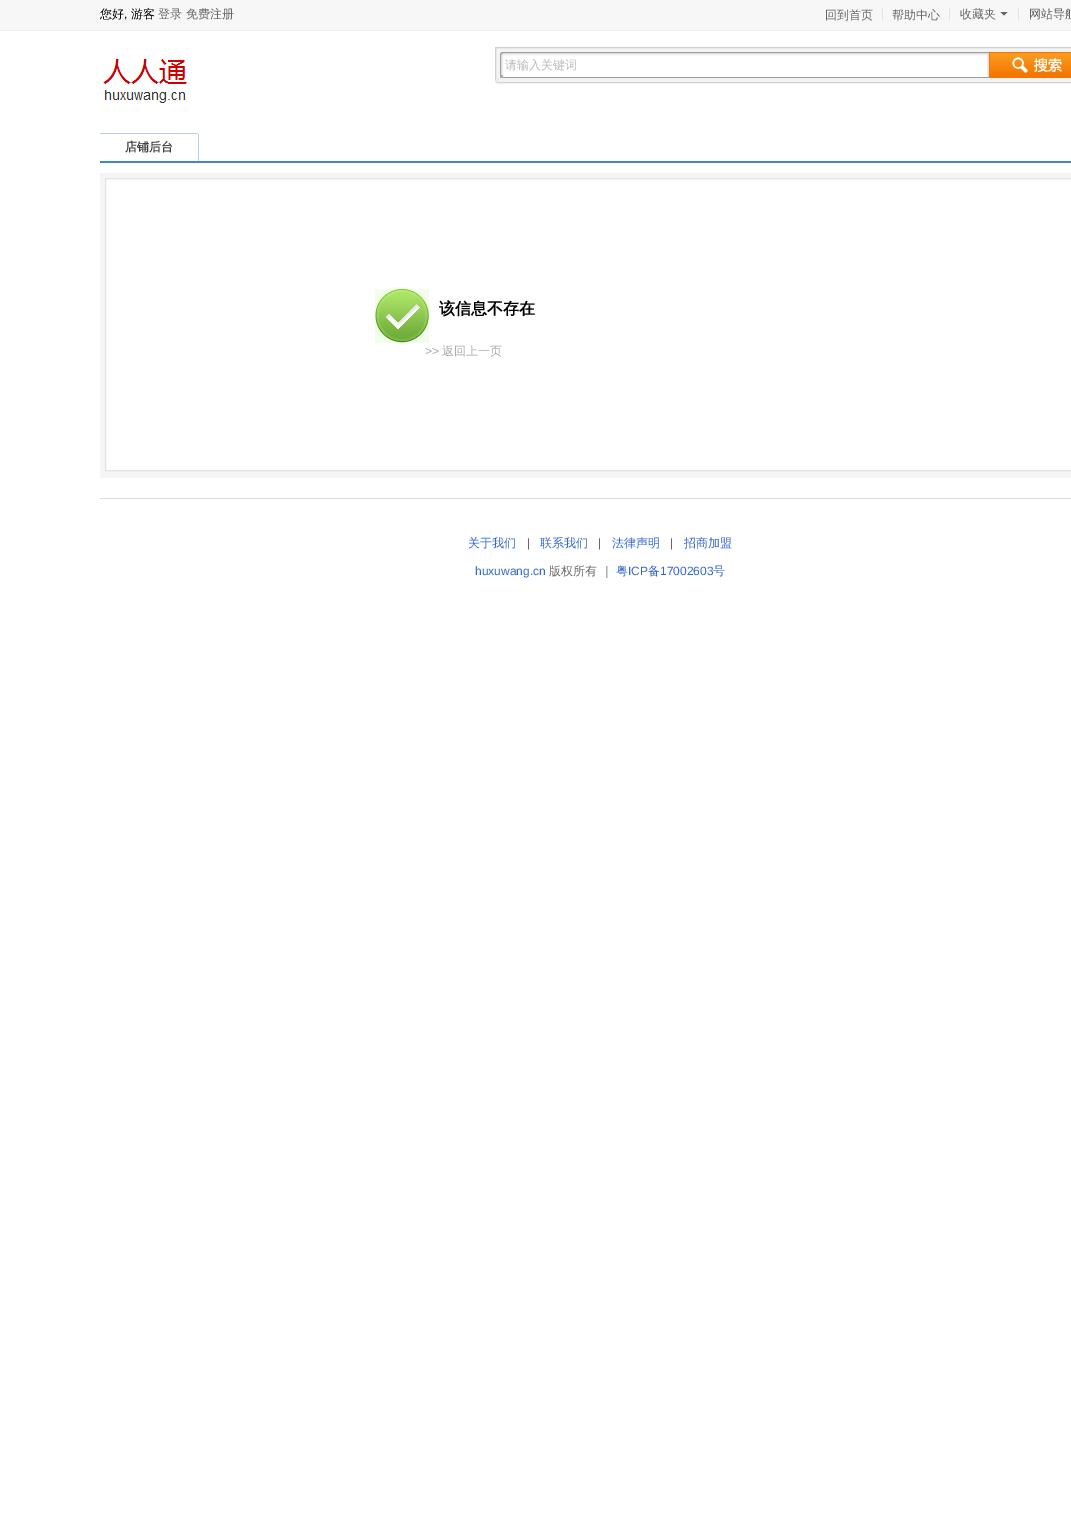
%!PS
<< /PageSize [1071 1516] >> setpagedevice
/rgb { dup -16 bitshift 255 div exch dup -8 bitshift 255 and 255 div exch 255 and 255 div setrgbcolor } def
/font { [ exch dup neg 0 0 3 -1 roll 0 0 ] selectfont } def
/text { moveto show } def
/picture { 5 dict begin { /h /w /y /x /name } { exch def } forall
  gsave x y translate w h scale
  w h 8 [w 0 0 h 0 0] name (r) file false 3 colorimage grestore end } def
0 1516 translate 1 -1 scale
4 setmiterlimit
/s1 { /WenQuanYiZenHei-Medium 12 font 16#000000 rgb } def
/s2 { /LiberationSans-Regular 12 font 16#000000 rgb } def
/s3 { /WenQuanYiZenHei-Medium 12 font 16#666666 rgb } def
/s4 { /WenQuanYiZenHei-Medium 12 font 16#BABABA rgb } def
/s5 { /WenQuanYiZenHei-Bold 12 font 16#404040 rgb } def
/s6 { /WenQuanYiZenHei-Bold 16 font 16#000000 rgb } def
/s7 { /LiberationSans-Regular 12 font 16#AAAAAA rgb } def
/s8 { /WenQuanYiZenHei-Medium 12 font 16#AAAAAA rgb } def
/s9 { /WenQuanYiZenHei-Medium 12 font 16#3366CC rgb } def
/s10 { /LiberationSans-Regular 12 font 16#666666 rgb } def
/s11 { /LiberationSans-Regular 12 font 16#3366CC rgb } def
16#FFFFFF rgb
0 0 1071 1516 rectfill
16#F7F7F7 rgb
0 0 1071 30 rectfill
16#EEEEEE rgb
0 30 1071 1 rectfill
s1
(您好) 100 18 text
s2
(,) 124 18 text
s1
(游客) 131 18 text
s3
(登录 免费注册) 158 18 text
16#DEE4E7 rgb
882 8 1 12 rectfill
s3
(回到首页) 825 19 text
16#DEE4E7 rgb
949 8 1 12 rectfill
s3
(帮助中心) 892 19 text
16#DEE4E7 rgb
1018 8 1 12 rectfill
s3
(收藏夹) 960 18 text
1000 12 moveto 1008 12 lineto 1004 16 lineto closepath fill
16#F7F7F7 rgb
1008 12 moveto 1008 20 lineto 1004 16 lineto closepath 1000 20 moveto 1000 12 lineto 1004 16 lineto closepath fill
s3
(网站导航) 1029 18 text
(pic1.raw) 103 59 84 44 picture
16#F3F3F3 rgb
495.5 47.5 moveto 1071.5 47.5 lineto 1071.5 82.5 lineto 495.5 82.5 lineto closepath gsave fill grestore
16#D0D0D0 rgb
stroke
(pic2.raw) 501 53 488 24 picture
16#9B9F9F rgb
500 52 489 1 rectfill
500 77 489 1 rectfill
500 52 1 26 rectfill
(pic3.raw) 500 52 2 2 picture
s4
(请输入关键词) 505 69 text
(pic4.raw) 987 54 2 23 picture
16#A7AAAA rgb
500 75 3 3 rectfill
(pic5.raw) 989 52 82 26 picture
(pic6.raw) 495 79 4 4 picture
16#3E88CD rgb
100 161 971 2 rectfill
16#B6CFEA rgb
100 133 98 1 rectfill
198 134 1 27 rectfill
s5
(店铺后台) 125 151 text
16#F5F5F5 rgb
100 173 971 305 rectfill
16#FFFFFF rgb
105.5 178.5 moveto 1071.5 178.5 lineto 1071.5 470.5 lineto 105.5 470.5 lineto closepath gsave fill grestore
16#E2E2E2 rgb
stroke
(pic7.raw) 375 289 54 54 picture
s6
(该信息不存在) 439 314 text
s7
(>>) 425 355 text
s8
(返回上一页) 442 355 text
16#DDDDDD rgb
100 498 971 1 rectfill
s9
(关于我们) 468 547 text
s10
(|) 527 547 text
s9
(联系我们) 540 547 text
s10
(|) 598 547 text
s9
(法律声明) 612 547 text
s10
(|) 670 547 text
s9
(招商加盟) 684 547 text
s11
(huxuwang.cn) 475 575 text
s3
(版权所有 ｜) 549 575 text
s9
(粤) 616 575 text
s11
(ICP) 628 575 text
s9
(备) 648 575 text
s11
(17002603) 660 575 text
s9
(号) 713 575 text
showpage
